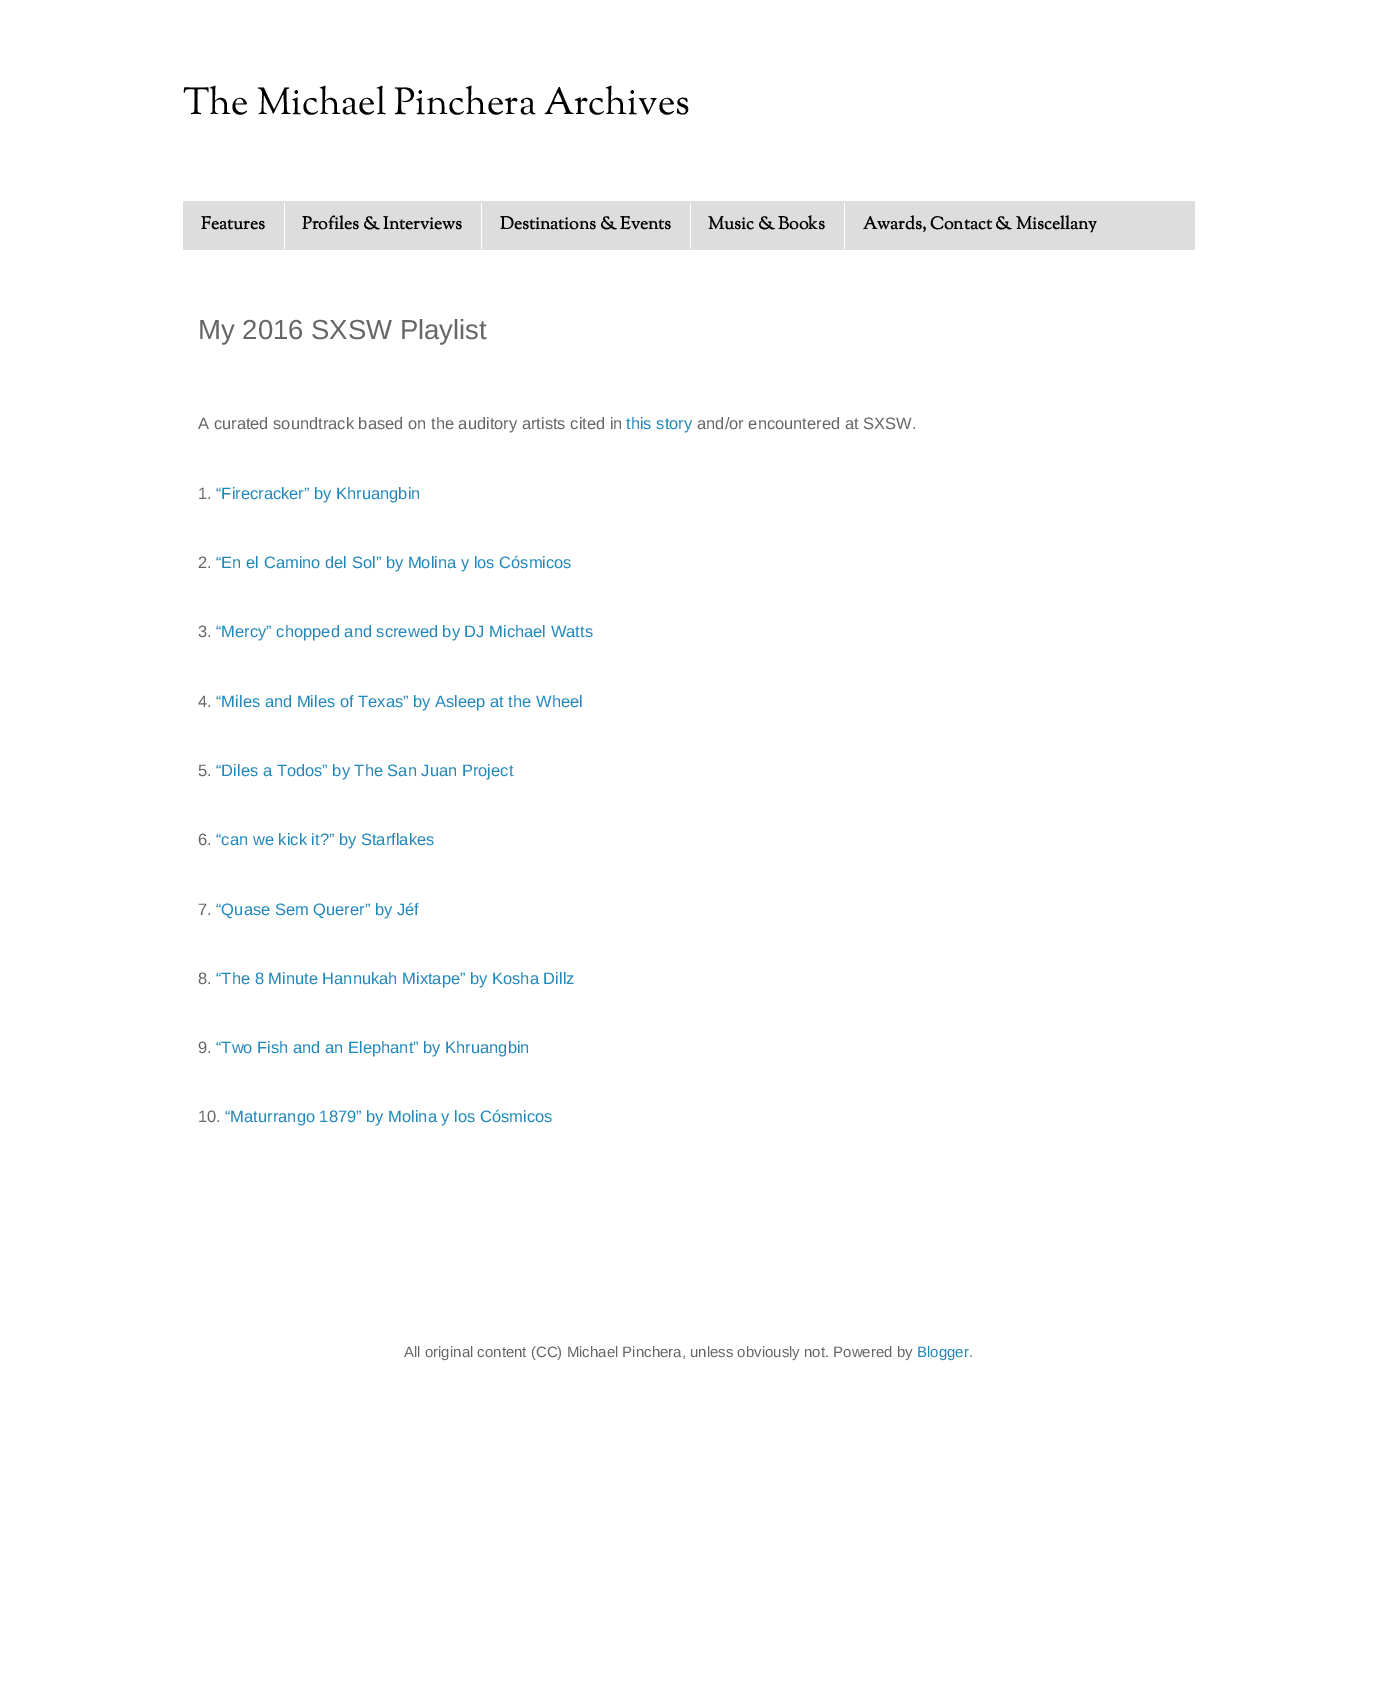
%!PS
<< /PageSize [1377 1692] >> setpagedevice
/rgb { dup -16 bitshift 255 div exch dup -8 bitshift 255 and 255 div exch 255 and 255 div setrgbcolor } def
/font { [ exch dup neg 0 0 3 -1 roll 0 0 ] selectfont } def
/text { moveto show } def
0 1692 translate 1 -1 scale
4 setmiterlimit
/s1 { /SortsMillGoudy-Regular 37.5 font 16#000000 rgb } def
/s2 { /SortsMillGoudy-Bold 17.5 font 16#000000 rgb } def
/s3 { /LiberationSans-Regular 27.5 font 16#666666 rgb } def
/s4 { /LiberationSans-Regular 16.5 font 16#666666 rgb } def
/s5 { /LiberationSans-Regular 16.5 font 16#2288BB rgb } def
/s6 { /LiberationSans-Regular 15 font 16#666666 rgb } def
/s7 { /LiberationSans-Regular 15 font 16#2288BB rgb } def
16#FFFFFF rgb
0 0 1377 1692 rectfill
s1
(The Michael Pinchera Archives) 183 114 text
16#DDDDDD rgb
183 201 1012 49 rectfill
s2
(Features) 201 229 text
16#FFFFFF rgb
284 203 1 46 rectfill
s2
(Profiles & Interviews) 302 229 text
16#FFFFFF rgb
481 203 1 46 rectfill
s2
(Destinations & Events) 500 229 text
16#FFFFFF rgb
690 203 1 46 rectfill
s2
(Music & Books) 708 229 text
16#FFFFFF rgb
844 203 1 46 rectfill
s2
(Awards, Contact & Miscellany) 863 229 text
s3
(My 2016 SXSW Playlist) 198 339 text
s4
(A curated soundtrack based on the auditory artists cited in) 198 429 text
s5
(this story) 626 429 text
s4
(and/or encountered at SXSW.) 697 429 text
(1.) 198 499 text
s5
(“Firecracker” by Khruangbin) 216 499 text
s4
(2.) 198 568 text
s5
(“En el Camino del Sol” by Molina y los Cósmicos) 216 568 text
s4
(3.) 198 637 text
s5
(“Mercy” chopped and screwed by DJ Michael Watts) 216 637 text
s4
(4.) 198 707 text
s5
(“Miles and Miles of Texas” by Asleep at the Wheel) 216 707 text
s4
(5.) 198 776 text
s5
(“Diles a Todos” by The San Juan Project) 216 776 text
s4
(6.) 198 845 text
s5
(“can we kick it?” by Starflakes) 216 845 text
s4
(7.) 198 915 text
s5
(“Quase Sem Querer” by Jéf) 216 915 text
s4
(8.) 198 984 text
s5
(“The 8 Minute Hannukah Mixtape” by Kosha Dillz) 216 984 text
s4
(9.) 198 1053 text
s5
(“Two Fish and an Elephant” by Khruangbin) 216 1053 text
s4
(10.) 198 1122 text
s5
(“Maturrango 1879” by Molina y los Cósmicos) 225 1122 text
s6
(All original content \(CC\) Michael Pinchera, unless obviously not. Powered by) 404 1357 text
s7
(Blogger) 917 1357 text
s6
(.) 969 1357 text
showpage
